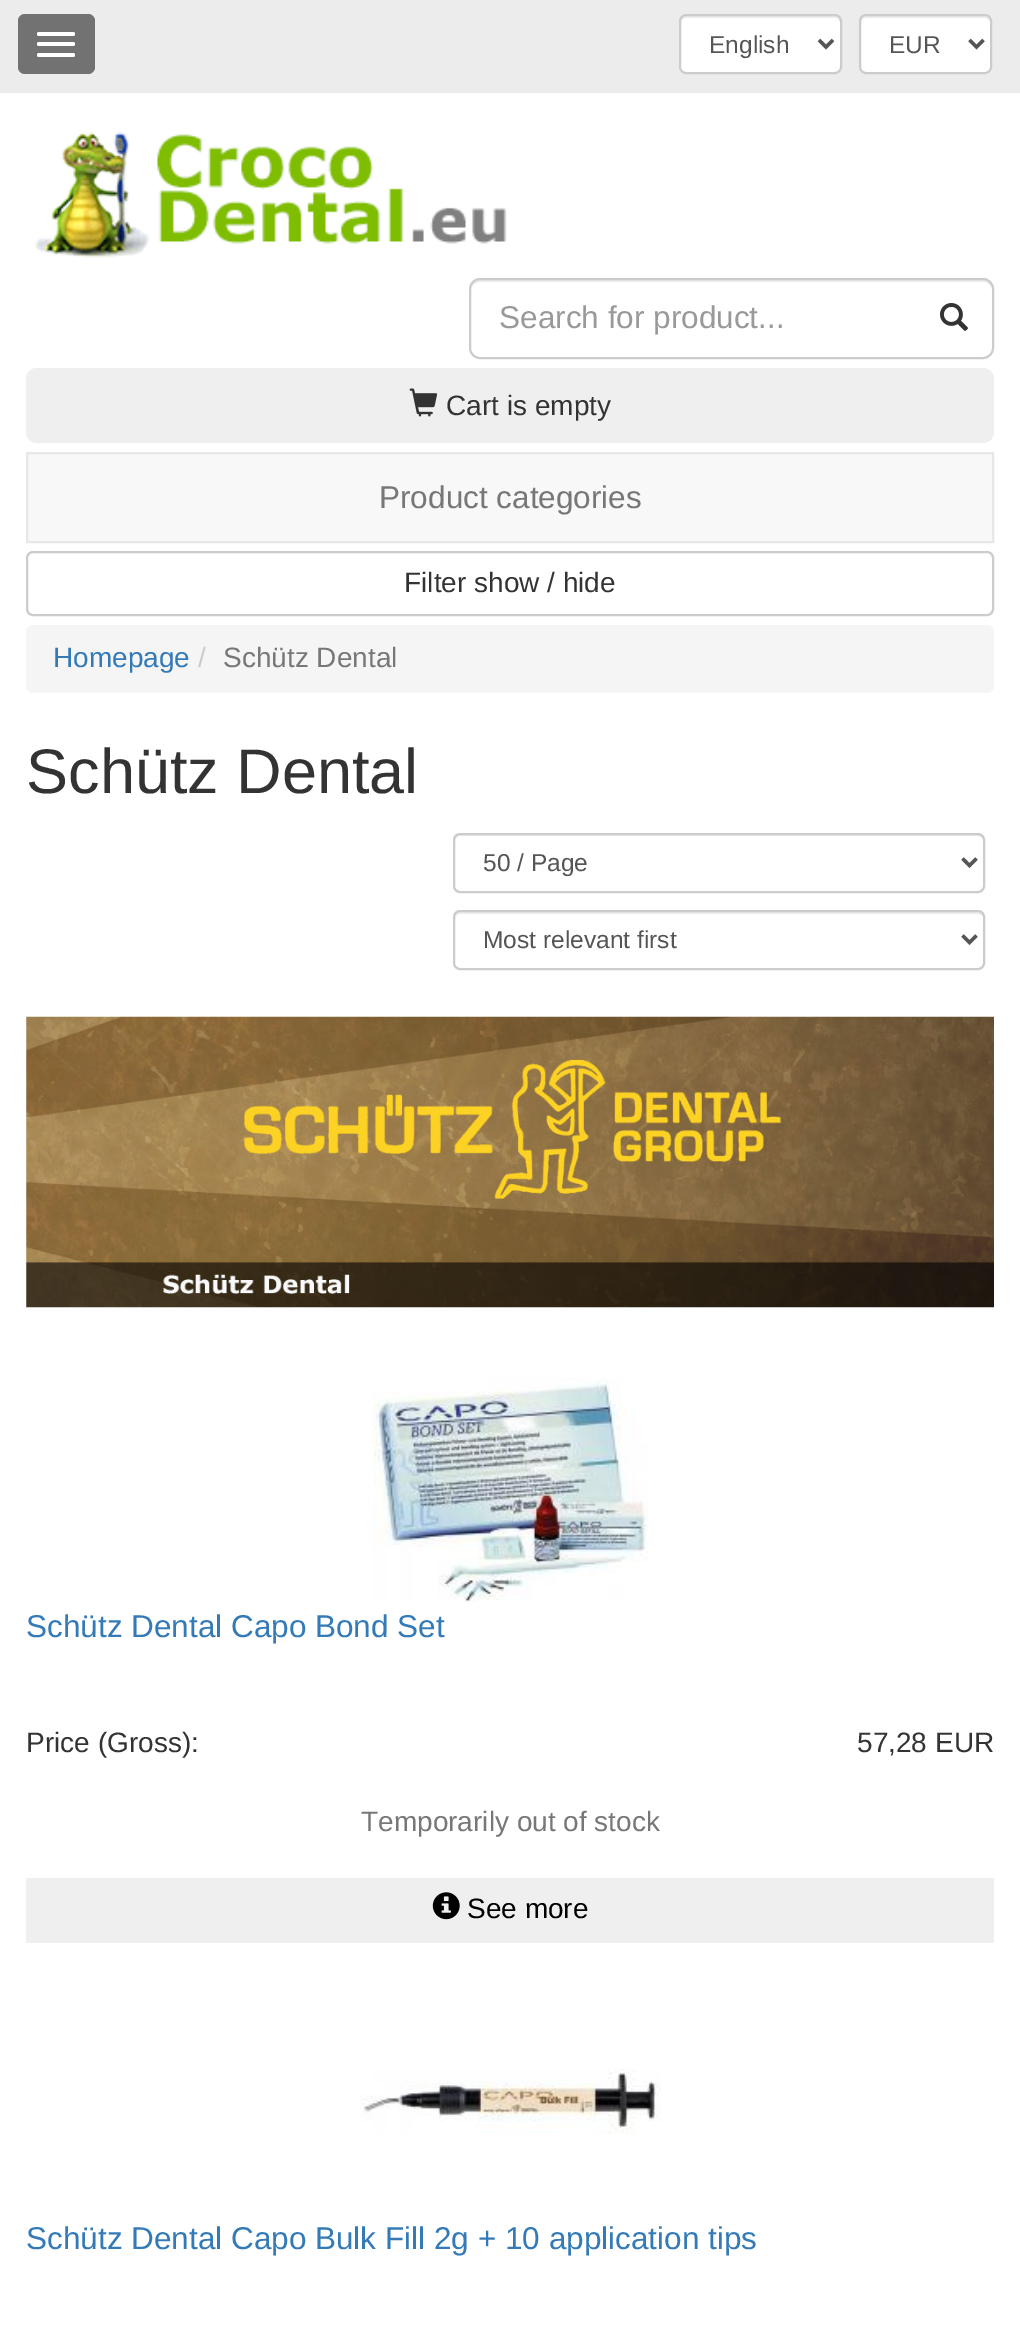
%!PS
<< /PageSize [1020 2340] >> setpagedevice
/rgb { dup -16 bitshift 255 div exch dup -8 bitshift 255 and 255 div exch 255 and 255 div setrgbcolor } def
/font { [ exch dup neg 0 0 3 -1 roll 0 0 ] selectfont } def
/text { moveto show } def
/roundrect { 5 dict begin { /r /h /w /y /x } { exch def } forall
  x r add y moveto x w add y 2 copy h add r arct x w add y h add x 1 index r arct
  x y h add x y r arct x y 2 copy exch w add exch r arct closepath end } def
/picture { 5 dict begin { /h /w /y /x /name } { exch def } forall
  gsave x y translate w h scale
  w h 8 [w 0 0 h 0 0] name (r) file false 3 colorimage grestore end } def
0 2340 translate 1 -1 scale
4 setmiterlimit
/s1 { /LiberationSans-Regular 24.5 font 16#555555 rgb } def
/s2 { /LiberationSans-Regular 31.5 font 16#999999 rgb } def
/s3 { /LiberationSans-Regular 28 font 16#333333 rgb } def
/s4 { /LiberationSans-Regular 31.5 font 16#777777 rgb } def
/s5 { /LiberationSans-Regular 28 font 16#337AB7 rgb } def
/s6 { /LiberationSans-Regular 28 font 16#CCCCCC rgb } def
/s7 { /LiberationSans-Regular 28 font 16#777777 rgb } def
/s8 { /LiberationSans-Regular 63 font 16#333333 rgb } def
/s9 { /LiberationSans-Regular 31.5 font 16#337AB7 rgb } def
/s10 { /LiberationSans-Regular 28 font 16#000000 rgb } def
16#FFFFFF rgb
0 0 1020 2340 rectfill
16#ECECEC rgb
0 0 1020 93 rectfill
16#727272 rgb
18 14 77 60 7 roundrect fill
16#FFFFFF rgb
37 32 38 4 2 roundrect fill
37 42 38 4 2 roundrect fill
37 53 38 4 2 roundrect fill
679 14 163 60 7 roundrect fill
16#ECECEC rgb
686 18 moveto 835 18 lineto 838 18 840 20 840 23 curveto 840 21 lineto 840 18 838 16 835 16 curveto 686 16 lineto 683 16 681 18 681 21 curveto 681 23 lineto 681 20 683 18 686 18 curveto closepath fill
16#CCCCCC rgb
2 setlinewidth
680 15 161 58 6 roundrect stroke
16#555555 rgb
3.5 setlinewidth
819 40 moveto 826 47 lineto 833 40 lineto stroke
s1
(English) 709 53 text
16#FFFFFF rgb
859 14 133 60 7 roundrect fill
16#ECECEC rgb
866 18 moveto 985 18 lineto 988 18 990 20 990 23 curveto 990 68 lineto 990 71 lineto 990 70 991 68 991 67 curveto 991 21 lineto 991 18 989 16 986 16 curveto 866 16 lineto 863 16 861 18 861 21 curveto 861 23 lineto 861 20 863 18 866 18 curveto closepath fill
16#CCCCCC rgb
2 setlinewidth
860 15 131 58 6 roundrect stroke
16#555555 rgb
3.5 setlinewidth
969.5 40 moveto 976.5 47 lineto 983.5 40 lineto stroke
(EUR) 889 53 text
(pic1.raw) 35 131 472 127 picture
16#ECECEC rgb
480 282 moveto 984 282 lineto 988 282 992 286 992 290 curveto 992 285 989 280 983 280 curveto 480 280 lineto 474 280 471 285 471 290 curveto 471 286 475 282 480 282 curveto closepath fill
16#CCCCCC rgb
2 setlinewidth
470 279 523 79 10 roundrect stroke
s2
(Search for product...) 499 328 text
(pic2.raw) 940 303 28 28 picture
16#EFEFEF rgb
26 368 968 75 11 roundrect fill
(pic3.raw) 409 388 29 29 picture
s3
(Cart is empty) 446 415 text
16#F8F8F8 rgb
27 453 moveto 993 453 lineto 993 542 lineto 27 542 lineto closepath gsave fill grestore
16#E7E7E7 rgb
stroke
s4
(Product categories) 379 508 text
16#CCCCCC rgb
27 552 966 63 6 roundrect stroke
s3
(Filter show / hide) 404 592 text
16#F5F5F5 rgb
26 625 968 68 7 roundrect fill
s5
(Homepage) 53 667 text
s6
(/) 198 667 text
s7
(Schütz Dental) 223 667 text
s8
(Schütz Dental) 26 793 text
16#ECECEC rgb
460 836 moveto 978 836 lineto 981 836 984 839 984 842 curveto 984 839 983 835 979 835 curveto 460 835 lineto 456 835 455 839 455 842 curveto 455 839 457 836 460 836 curveto closepath fill
16#CCCCCC rgb
454 834 530 58 6 roundrect stroke
16#555555 rgb
3.5 setlinewidth
962.5 858.5 moveto 969.5 865.5 lineto 976.5 858.5 lineto stroke
s1
(50 / Page) 483 871 text
16#ECECEC rgb
460 914 moveto 978 914 lineto 981 914 984 916 984 919 curveto 984 916 983 912 979 912 curveto 460 912 lineto 456 912 455 916 455 919 curveto 455 916 457 914 460 914 curveto closepath fill
16#CCCCCC rgb
2 setlinewidth
454 911 530 58 6 roundrect stroke
16#555555 rgb
3.5 setlinewidth
962.5 935.5 moveto 969.5 942.5 lineto 976.5 935.5 lineto stroke
(Most relevant first) 483 948 text
(pic4.raw) 26 1016 968 292 picture
(pic5.raw) 372 1378 276 224 picture
s9
(Schütz Dental Capo Bond Set) 26 1637 text
s3
(Price \(Gross\):) 26 1752 text
(57,28 EUR) 857 1752 text
s7
(Temporarily out of stock) 361 1831 text
16#EFEFEF rgb
26 1878 968 65 rectfill
(pic6.raw) 432 1892 28 28 picture
s10
(See more) 467 1918 text
(pic7.raw) 360 2069 301 65 picture
s9
(Schütz Dental Capo Bulk Fill 2g + 10 application tips) 26 2249 text
showpage
